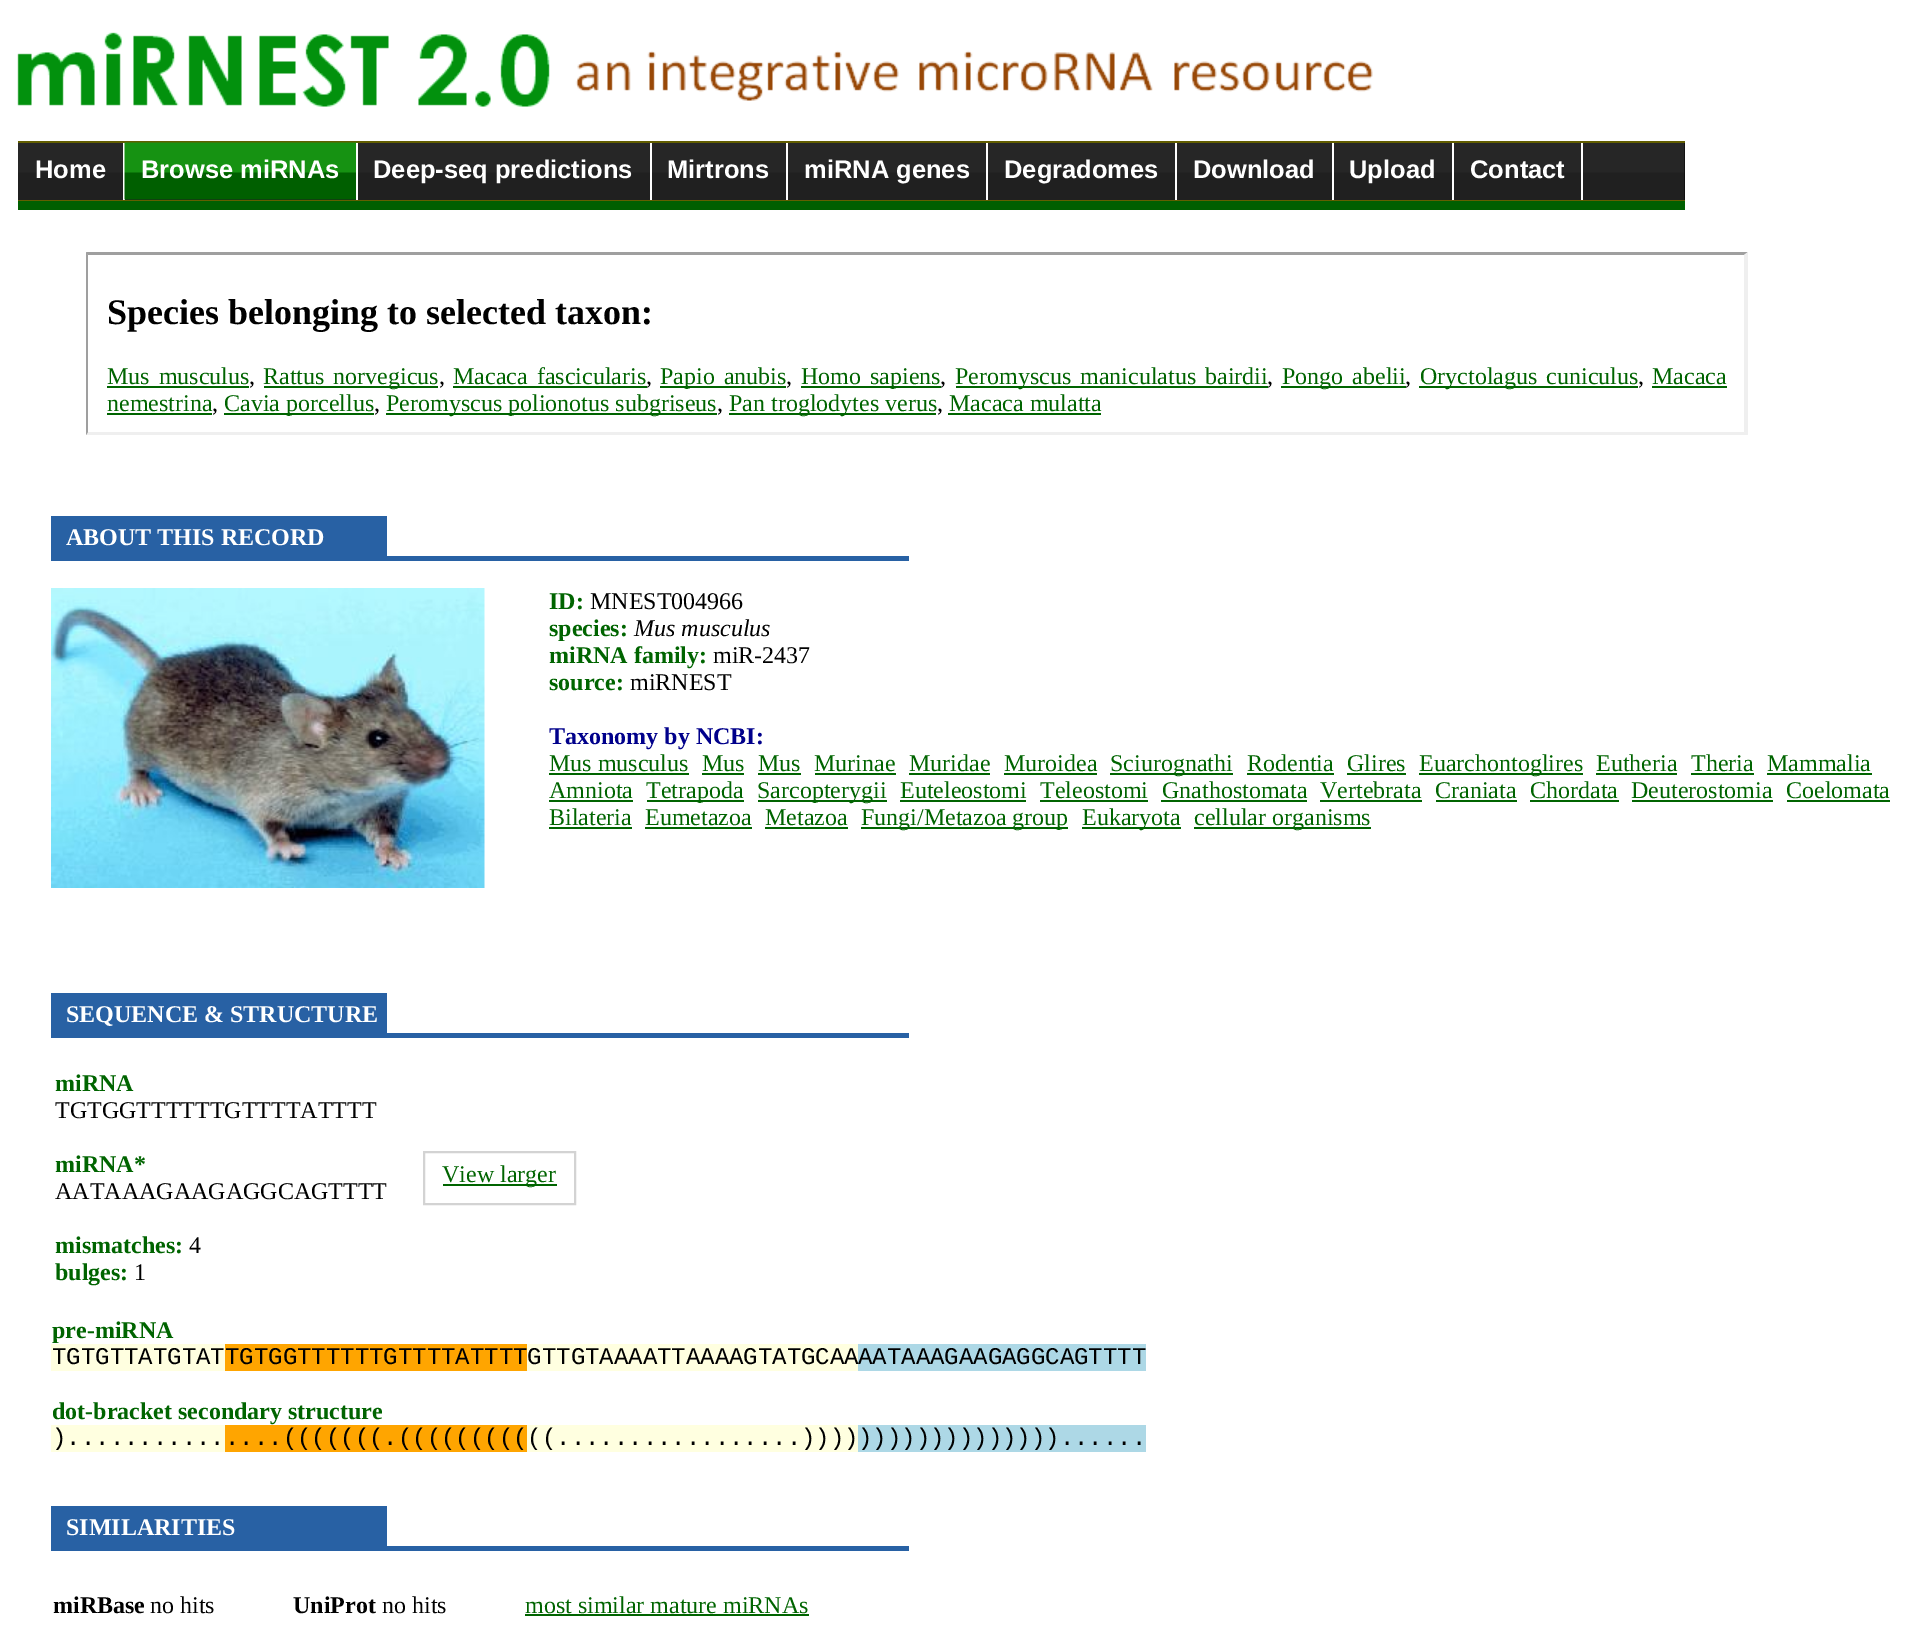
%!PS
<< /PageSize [1925 1647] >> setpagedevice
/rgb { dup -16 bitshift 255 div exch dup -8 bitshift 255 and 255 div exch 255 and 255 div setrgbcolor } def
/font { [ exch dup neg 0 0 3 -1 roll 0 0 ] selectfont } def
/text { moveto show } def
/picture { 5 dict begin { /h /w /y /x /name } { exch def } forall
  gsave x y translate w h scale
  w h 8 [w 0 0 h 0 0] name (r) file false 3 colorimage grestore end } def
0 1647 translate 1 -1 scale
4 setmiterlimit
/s1 { /LiberationSans-Bold 25.5 font 16#FFFFFF rgb } def
/s2 { /LiberationSerif-Bold 36 font 16#000000 rgb } def
/s3 { /LiberationSerif-Regular 24 font 16#000000 rgb } def
/s4 { /LiberationSerif-Regular 24 font 16#006400 rgb } def
/s5 { /LiberationSerif-Bold 24 font 16#FFFFFF rgb } def
/s6 { /LiberationSerif-Bold 24 font 16#006400 rgb } def
/s7 { /LiberationSerif-Italic 24 font 16#000000 rgb } def
/s8 { /LiberationSerif-Bold 24 font 16#00008B rgb } def
/s9 { /LiberationMono-Regular 24 font 16#000000 rgb } def
/s10 { /LiberationSerif-Bold 24 font 16#000000 rgb } def
16#FFFFFF rgb
0 0 1925 1647 rectfill
(pic1.raw) 17 32 1356 75 picture
16#000000 rgb
1684 143 1 57 rectfill
(pic2.raw) 18 143 1667 57 picture
16#625E00 rgb
18 141 1667 2 rectfill
18 200 1667 1 rectfill
16#FFFFFF rgb
123 143 2 57 rectfill
s1
(Home) 35 178 text
(pic3.raw) 124 142 233 58 picture
356 143 2 57 rectfill
(Browse miRNAs) 141 178 text
650 143 2 57 rectfill
(Deep-seq predictions) 373 178 text
786 143 2 57 rectfill
(Mirtrons) 667 178 text
986 143 2 57 rectfill
(miRNA genes) 804 178 text
1175 143 2 57 rectfill
(Degradomes) 1004 178 text
1332 143 2 57 rectfill
(Download) 1193 178 text
1452 143 2 57 rectfill
(Upload) 1349 178 text
1581 143 2 57 rectfill
(Contact) 1470 178 text
16#005F00 rgb
18 201 1667 9 rectfill
16#9F9F9F rgb
86 252 moveto 1748 252 lineto 1744 255 lineto 88 255 lineto closepath fill
16#EFEFEF rgb
1748 252 moveto 1748 435 lineto 1744 432 lineto 1744 255 lineto closepath fill
1748 435 moveto 86 435 lineto 88 432 lineto 1744 432 lineto closepath fill
16#9F9F9F rgb
86 435 moveto 86 252 lineto 88 255 lineto 88 432 lineto closepath fill
s2
(Species belonging to selected taxon:) 107 324 text
/LiberationSerif-Regular 24 font
16#006400 rgb
107 384 moveto 3 0 32 (Mus musculus) widthshow
107 386 142 2 rectfill
s3
(,) 249 384 text
16#006400 rgb
264 386 174 2 rectfill
263 384 moveto 3 0 32 (Rattus norvegicus) widthshow
s3
(,) 439 384 text
16#006400 rgb
453 384 moveto 3 0 32 (Macaca fascicularis) widthshow
453 386 194 2 rectfill
s3
(,) 646 384 text
16#006400 rgb
660 386 126 2 rectfill
660 384 moveto 3 0 32 (Papio anubis) widthshow
s3
(,) 786 384 text
16#006400 rgb
801 386 140 2 rectfill
801 384 moveto 3 0 32 (Homo sapiens) widthshow
s3
(,) 940 384 text
16#006400 rgb
956 386 312 2 rectfill
955 384 moveto 3 0 32 (Peromyscus maniculatus bairdii) widthshow
s3
(,) 1267 384 text
16#006400 rgb
1281 386 125 2 rectfill
1282 384 moveto 3 0 32 (Pongo abelii) widthshow
s3
(,) 1405 384 text
16#006400 rgb
1419 386 219 2 rectfill
1420 384 moveto 3 0 32 (Oryctolagus cuniculus) widthshow
s3
(,) 1638 384 text
s4
(Macaca) 1652 384 text
1652 386 75 2 rectfill
(nemestrina) 107 411 text
107 413 105 2 rectfill
s3
(,) 212 411 text
16#006400 rgb
224 413 150 2 rectfill
(Cavia porcellus) 224 411 text
s3
(,) 374 411 text
16#006400 rgb
386 413 331 2 rectfill
(Peromyscus polionotus subgriseus) 386 411 text
s3
(,) 717 411 text
16#006400 rgb
729 413 207 2 rectfill
(Pan troglodytes verus) 729 411 text
s3
(,) 937 411 text
s4
(Macaca mulatta) 949 411 text
948 413 153 2 rectfill
16#2861A4 rgb
51 516 336 45 rectfill
s5
(ABOUT THIS RECORD) 66 545 text
16#2861A4 rgb
387 556 522 5 rectfill
(pic4.raw) 51 588 434 300 picture
s6
(ID:) 549 609 text
s3
(MNEST004966) 590 609 text
s6
(species:) 549 636 text
s7
(Mus musculus) 634 636 text
s6
(miRNA family:) 549 663 text
s3
(miR-2437) 713 663 text
s6
(source:) 549 690 text
s3
(miRNEST) 630 690 text
s8
(Taxonomy by NCBI:) 549 744 text
s4
(Mus musculus) 549 771 text
549 773 140 2 rectfill
(Mus) 702 771 text
702 773 42 2 rectfill
(Mus) 758 771 text
758 773 43 2 rectfill
(Murinae) 814 771 text
815 773 81 2 rectfill
(Muridae) 909 771 text
909 773 81 2 rectfill
(Muroidea) 1004 771 text
1004 773 93 2 rectfill
1110 773 123 2 rectfill
(Sciurognathi) 1110 771 text
(Rodentia) 1247 771 text
1247 773 87 2 rectfill
(Glires) 1347 771 text
1347 773 59 2 rectfill
1419 773 164 2 rectfill
(Euarchontoglires) 1419 771 text
(Eutheria) 1596 771 text
1596 773 81 2 rectfill
(Theria) 1691 771 text
1691 773 63 2 rectfill
(Mammalia) 1767 771 text
1767 773 105 2 rectfill
(Amniota) 549 798 text
549 800 84 2 rectfill
647 800 97 2 rectfill
(Tetrapoda) 646 798 text
758 800 129 2 rectfill
(Sarcopterygii) 757 798 text
(Euteleostomi) 900 798 text
900 800 126 2 rectfill
(Teleostomi) 1040 798 text
1040 800 108 2 rectfill
(Gnathostomata) 1162 798 text
1161 800 146 2 rectfill
(Vertebrata) 1320 798 text
1320 800 102 2 rectfill
(Craniata) 1435 798 text
1436 800 81 2 rectfill
(Chordata) 1530 798 text
1530 800 89 2 rectfill
(Deuterostomia) 1631 798 text
1632 800 141 2 rectfill
(Coelomata) 1786 798 text
1787 800 103 2 rectfill
(Bilateria) 549 825 text
549 827 83 2 rectfill
(Eumetazoa) 645 825 text
645 827 107 2 rectfill
(Metazoa) 765 825 text
765 827 83 2 rectfill
861 827 207 2 rectfill
(Fungi/Metazoa group) 861 825 text
1082 827 99 2 rectfill
(Eukaryota) 1082 825 text
1194 827 177 2 rectfill
(cellular organisms) 1194 825 text
16#2861A4 rgb
51 993 336 45 rectfill
s5
(SEQUENCE & STRUCTURE) 66 1022 text
16#2861A4 rgb
387 1033 522 5 rectfill
s6
(miRNA) 55 1091 text
s3
(TGTGGTTTTTTGTTTTATTTT) 55 1118 text
s6
(miRNA*) 55 1172 text
s3
(AATAAAGAAGAGGCAGTTTT) 55 1199 text
s6
(mismatches:) 55 1253 text
s3
(4) 189 1253 text
s6
(bulges:) 55 1280 text
s3
(1) 134 1280 text
16#D3D3D3 rgb
2 setlinewidth
424 1152 151 52 rectstroke
16#006400 rgb
443 1184 114 2 rectfill
(View larger) 442 1182 text
s6
(pre-miRNA) 52 1338 text
16#FFFFE0 rgb
51 1344 174 27 rectfill
s9
(TGTGTTATGTAT) 52 1364 text
16#FFFFE0 rgb
527 1344 331 27 rectfill
16#FFA500 rgb
225 1344 302 27 rectfill
s9
(TGTGGTTTTTTGTTTTATTTTGTTGTAAAATTAAAAGTATGCAA) 225 1364 text
16#ADD8E6 rgb
858 1344 288 27 rectfill
s9
(AATAAAGAAGAGGCAGTTTT) 858 1364 text
s6
(dot-bracket secondary structure) 52 1419 text
16#FFFFE0 rgb
51 1425 174 27 rectfill
s9
(\)...........) 52 1445 text
16#FFFFE0 rgb
527 1425 331 27 rectfill
16#FFA500 rgb
225 1425 302 27 rectfill
s9
(....\(\(\(\(\(\(\(.\(\(\(\(\(\(\(\(\(\(\(.................\)\)\)\)) 225 1445 text
16#ADD8E6 rgb
858 1425 288 27 rectfill
s9
(\)\)\)\)\)\)\)\)\)\)\)\)\)\)......) 858 1445 text
16#2861A4 rgb
51 1506 336 45 rectfill
s5
(SIMILARITIES) 66 1535 text
16#2861A4 rgb
387 1546 522 5 rectfill
s10
(miRBase) 53 1613 text
s3
(no hits) 150 1613 text
s10
(UniProt) 293 1613 text
s3
(no hits) 382 1613 text
s4
(most similar mature miRNAs) 525 1613 text
525 1614 284 2 rectfill
showpage
